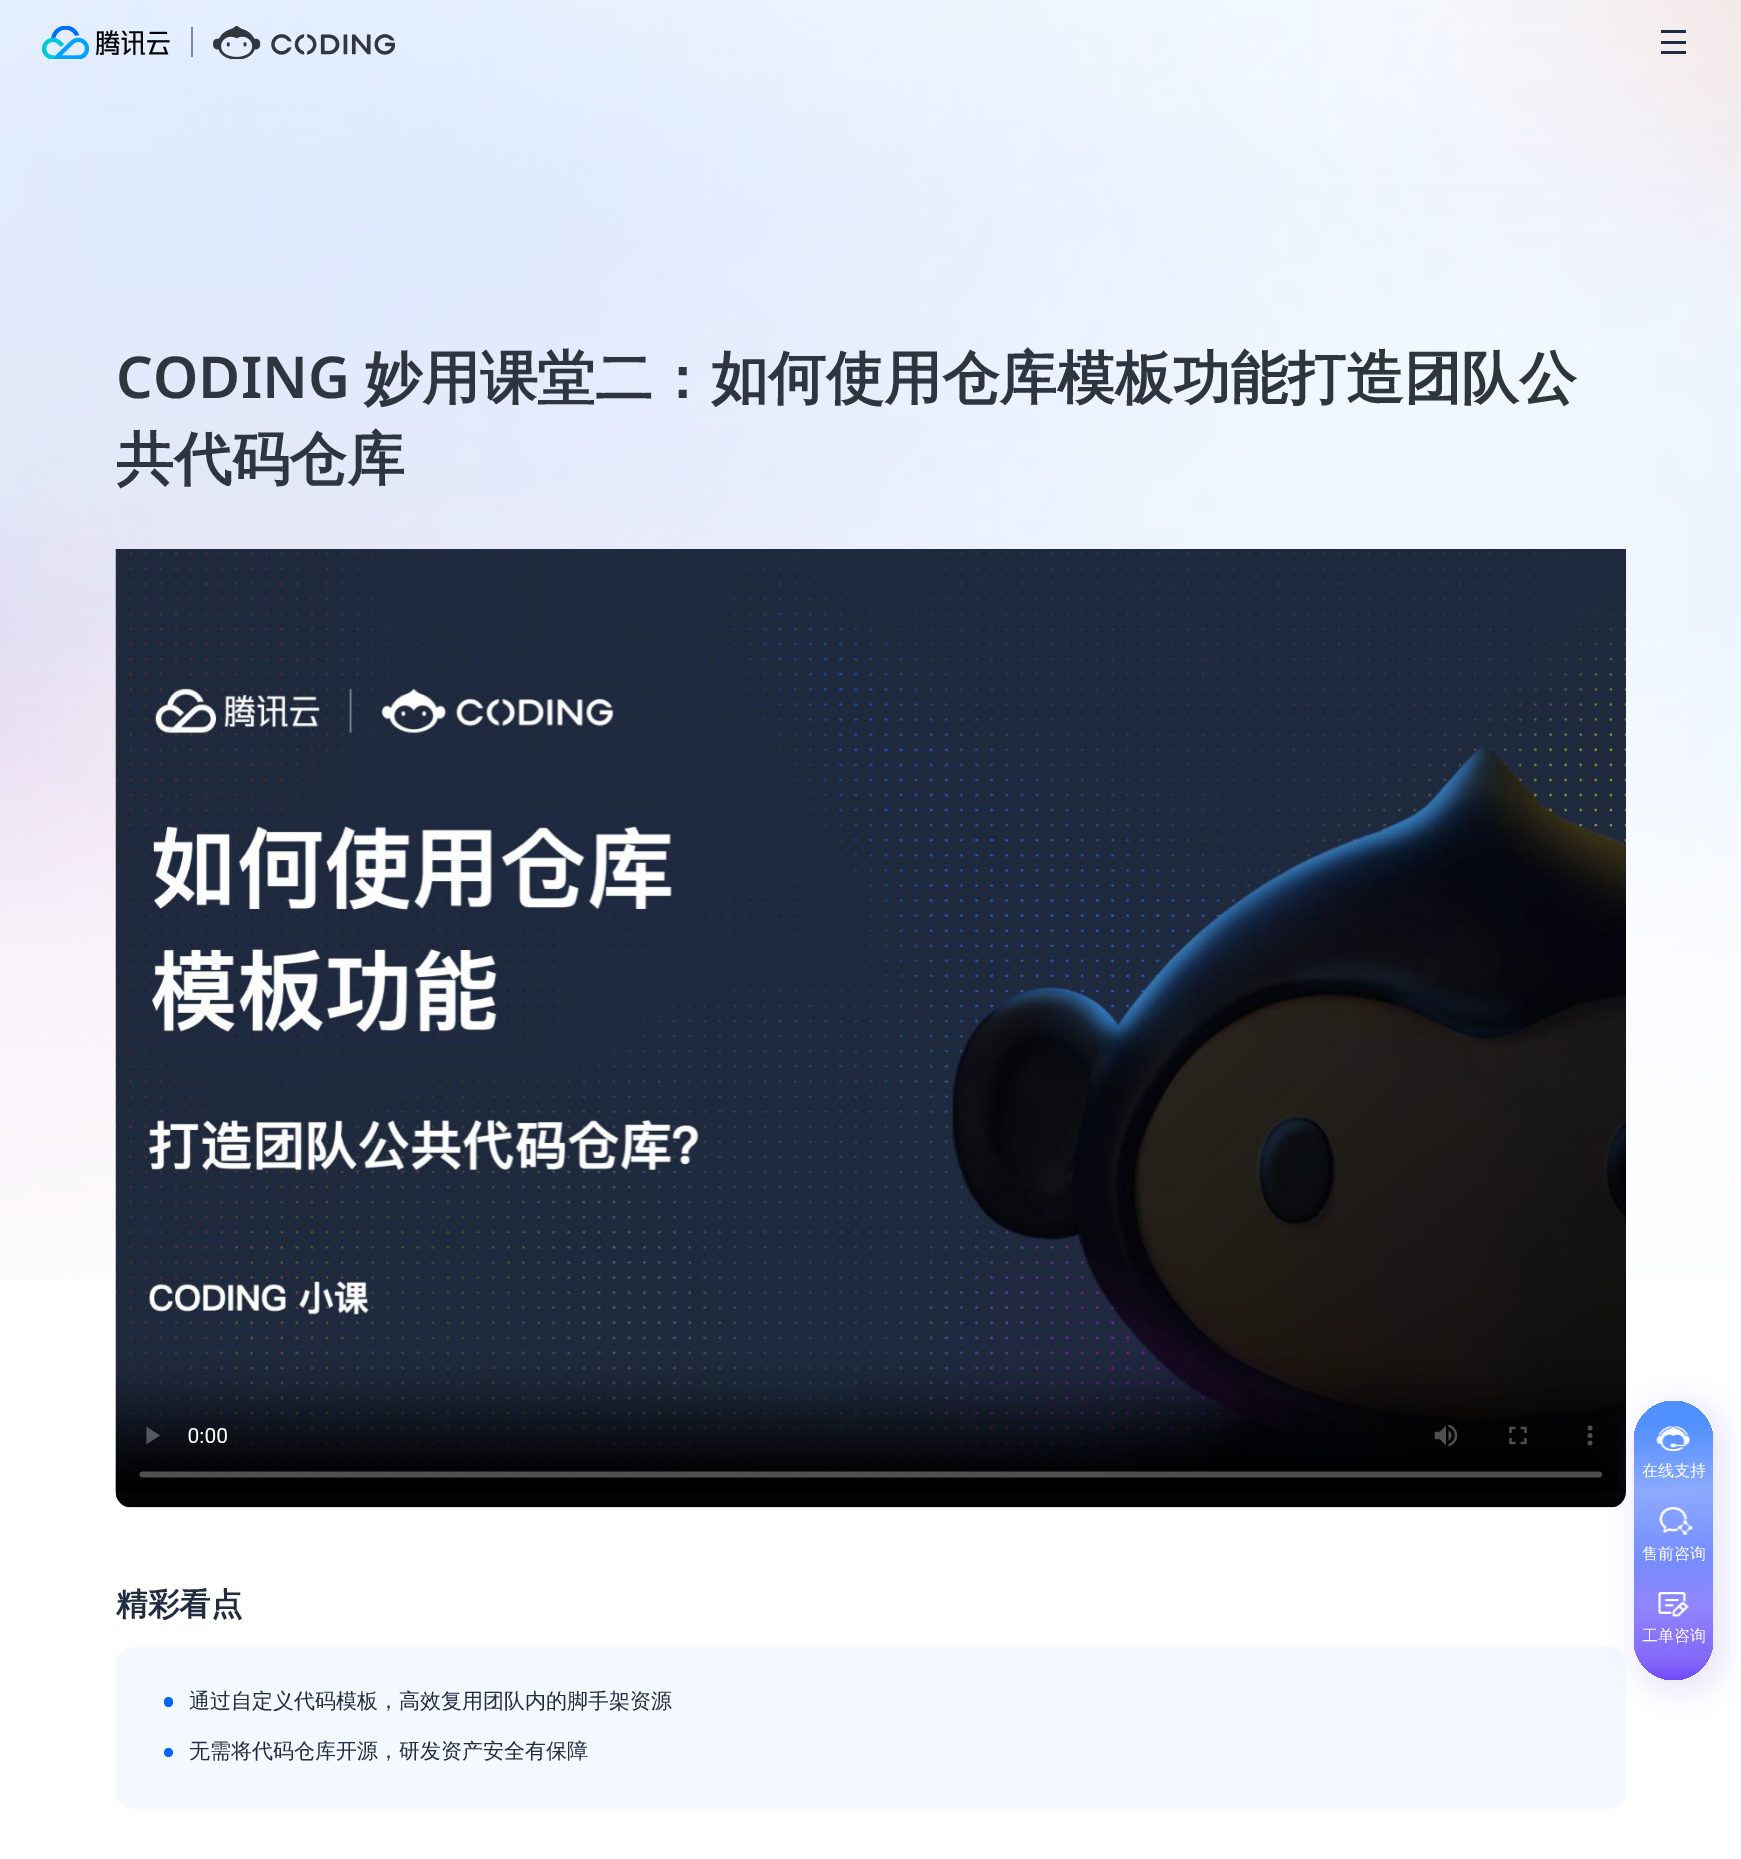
%!PS
<< /PageSize [1741 1859] /PageUsesTransparency true >> setpagedevice
/rgb { dup -16 bitshift 255 div exch dup -8 bitshift 255 and 255 div exch 255 and 255 div setrgbcolor } def
/font { [ exch dup neg 0 0 3 -1 roll 0 0 ] selectfont } def
/text { moveto show } def
/alpha { dup .setfillconstantalpha .setstrokeconstantalpha } def
/circle { newpath 0 360 arc closepath } def
/roundrect { 5 dict begin { /r /h /w /y /x } { exch def } forall
  x r add y moveto x w add y 2 copy h add r arct x w add y h add x 1 index r arct
  x y h add x y r arct x y 2 copy exch w add exch r arct closepath end } def
/shadow { 12 dict begin { /a /b /q /h /w /y /x } { exch def } forall gsave /was 0 def
  9 -2 -9 { dup b mul 4 div /e exch def 1 sub .425 mul 2.718 exch exp 1 add a .99 .min exch div /now exch def
    1 1 now sub 1 was sub div sub alpha /was now def
    w h .min e 2 mul add 0 gt { x e sub y e sub w e 2 mul add h e 2 mul add
      q e add b .6 mul add w h .min 2 div e add .min 0 .max roundrect fill } if } for grestore end } def
/picture { 5 dict begin { /h /w /y /x /name } { exch def } forall
  gsave x y translate w h scale
  w h 8 [w 0 0 h 0 0] name (r) file false 3 colorimage grestore end } def
0 .pushpdf14devicefilter
0 1859 translate 1 -1 scale
4 setmiterlimit
/s1 { /NotoSans-SemiBold 57.75 font 16#2F353F rgb } def
/s2 { /WenQuanYiZenHei-Bold 57.75 font 16#2F353F rgb } def
/s3 { /WenQuanYiZenHei-Bold 31.5 font 16#202D40 rgb } def
/s4 { /WenQuanYiZenHei-Medium 21 font 16#202D40 rgb } def
/s5 { /WenQuanYiZenHei-Medium 16 font 16#FFFFFF rgb } def
16#FFFFFF rgb
0 0 1741 1859 rectfill
(pic3.raw) 0 0 1741 1280 picture
(pic1.raw) 42 26 128 33 picture
16#888888 rgb
191 27 2 30 rectfill
(pic2.raw) 213 26 182 33 picture
16#202D40 rgb
1661 41 25 3 rectfill
1661 30 25 3 rectfill
1661 51 25 3 rectfill
s1
(CODING) 116 398 text
s2
(妙用课堂二：如何使用仓库模板功能打造团队公) 364 398 text
(共代码仓库) 116 479 text
(pic4.raw) 115 549 1511 959 picture
s3
(精彩看点) 116 1615 text
16#F4F9FF rgb
116 1647 1510 162 17 roundrect fill
16#0066FF rgb
164 1697 9 10 4.5 roundrect fill
s4
(通过自定义代码模板，高效复用团队内的脚手架资源) 189 1708 text
16#0066FF rgb
168.5 1752.5 4.5 circle fill
s4
(无需将代码仓库开源，研发资产安全有保障) 189 1758 text
16#A099E9 rgb
1634 1401 93 293 46.5 13 0.2 shadow
gsave 1634 1401 79 279 39.5 roundrect clip newpath
<< /ShadingType 2 /ColorSpace /DeviceRGB /Coords [1668 1400 1679 1701] /Extend [true true] /Function << /FunctionType 3 /Domain [0 1] /Functions [<< /FunctionType 2 /Domain [0 1] /C0 [0.318 0.565 1] /C1 [0.318 0.565 1] /N 1 >> << /FunctionType 2 /Domain [0 1] /C0 [0.318 0.565 1] /C1 [0.553 0.667 1] /N 1 >> << /FunctionType 2 /Domain [0 1] /C0 [0.553 0.667 1] /C1 [0.463 0.553 1] /N 1 >> << /FunctionType 2 /Domain [0 1] /C0 [0.463 0.553 1] /C1 [0.565 0.525 1] /N 1 >> << /FunctionType 2 /Domain [0 1] /C0 [0.565 0.525 1] /C1 [0.514 0.408 0.973] /N 1 >> << /FunctionType 2 /Domain [0 1] /C0 [0.514 0.408 0.973] /C1 [0.361 0.137 1] /N 1 >>] /Bounds [0.08 0.3 0.53 0.68 0.87] /Encode [0 1 0 1 0 1 0 1 0 1 0 1] >> >> shfill grestore
(pic5.raw) 1656 1426 34 26 picture
s5
(在线支持) 1642 1476 text
(pic6.raw) 1659 1507 34 28 picture
(售前咨询) 1642 1559 text
(pic7.raw) 1658 1592 31 25 picture
(工单咨询) 1642 1641 text
.poppdf14devicefilter showpage
